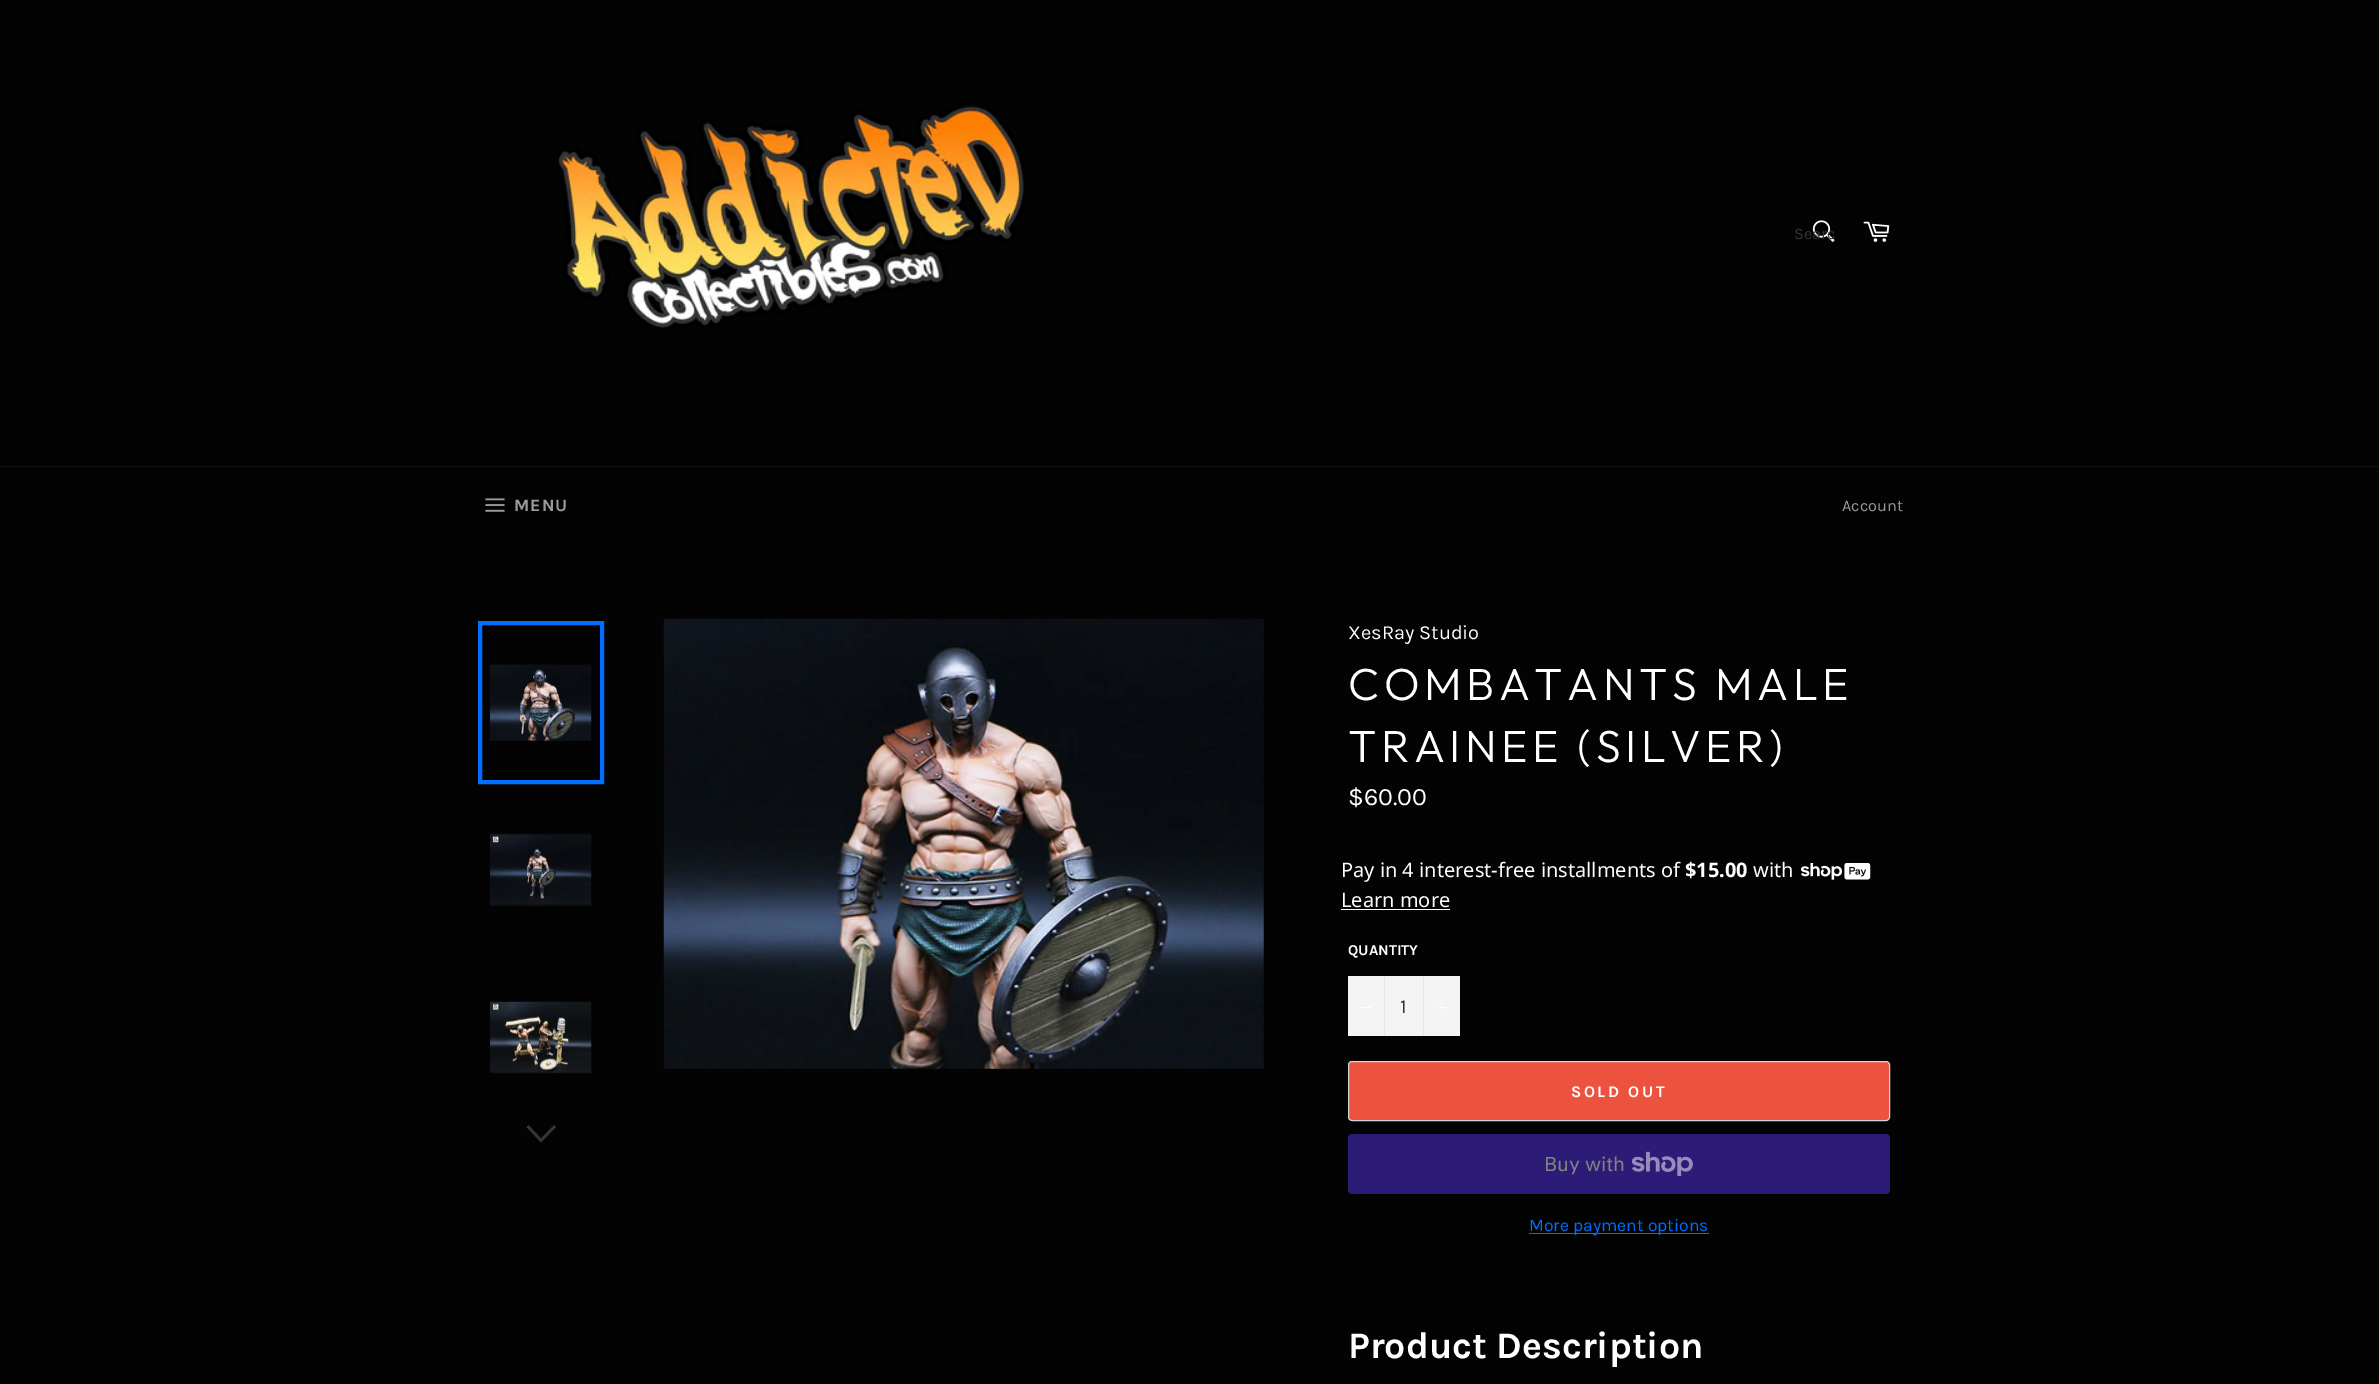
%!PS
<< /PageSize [2379 1384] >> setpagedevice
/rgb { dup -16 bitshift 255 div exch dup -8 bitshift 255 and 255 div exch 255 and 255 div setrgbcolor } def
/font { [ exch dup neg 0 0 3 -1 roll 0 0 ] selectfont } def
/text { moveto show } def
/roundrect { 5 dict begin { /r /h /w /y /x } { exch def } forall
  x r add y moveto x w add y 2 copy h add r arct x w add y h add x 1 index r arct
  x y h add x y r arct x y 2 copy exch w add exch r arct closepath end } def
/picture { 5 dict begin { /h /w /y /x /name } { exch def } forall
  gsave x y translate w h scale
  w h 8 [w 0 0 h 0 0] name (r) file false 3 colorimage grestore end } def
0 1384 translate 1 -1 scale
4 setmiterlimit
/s1 { /Karla-Regular 16.25 font 16#333333 rgb } def
/s2 { /Karla-Regular 16.25 font 16#9A9A9A rgb } def
/s3 { /Karla-Regular 20 font 16#FFFFFF rgb } def
/s4 { /Karla-Regular 25 font 16#FFFFFF rgb } def
/s5 { /NotoSans-Regular 20 font 16#FFFFFF rgb } def
/s6 { /NotoSans-Bold 20 font 16#FFFFFF rgb } def
/s7 { /Karla-Bold 15 font 16#FFFFFF rgb } def
/s8 { /Karla-Regular 20 font 16#333333 rgb } def
/s9 { /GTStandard-Regular 20 font 16#818181 rgb } def
/s10 { /Karla-Regular 17.5 font 16#006EFF rgb } def
/s11 { /Karla-Bold 37.5 font 16#FFFFFF rgb } def
16#030303 rgb
0 0 2379 1384 rectfill
(pic1.raw) 558 106 466 222 picture
(pic2.raw) 1812 220 23 22 picture
s1
(Searc) 1794 239 text
(pic3.raw) 1863 221 27 21 picture
16#101010 rgb
0 466 2379 1 rectfill
(pic4.raw) 485 498 20 14 picture
/Karla-Bold 17.5 font
16#9A9A9A rgb
514 511 moveto 1 0 (MENU) ashow
s2
(Account) 1842 511 text
(pic5.raw) 490 664 102 77 picture
16#006EFF rgb
4 setlinewidth
480 623 122 159 rectstroke
(pic6.raw) 490 833 102 73 picture
(pic7.raw) 490 1001 102 73 picture
16#353535 rgb
554 1125 moveto 556 1127 lineto 541 1142.5 lineto 526.5 1127 lineto 528.5 1125 lineto 541 1138.5 lineto closepath fill
(pic8.raw) 663 618 601 451 picture
s3
(XesRay Studio) 1348 639 text
/Outfit-Light 45 font
1348 700 moveto 4.5 0 (COMBATANTS MALE) ashow
1348 762 moveto 4.5 0 (TRAINEE \(SILVER\)) ashow
s4
($60.00) 1348 805 text
s5
(Pay in 4 interest-free installments of) 1341 877 text
s6
($15.00) 1685 877 text
s5
(with) 1753 877 text
(pic9.raw) 1801 863 70 17 picture
(Learn more) 1341 907 text
1341 909 109 1 rectfill
s7
(QUANTITY) 1348 955 text
16#F4F4F4 rgb
1348 976 112 60 rectfill
16#E7E7E7 rgb
1384 976 1 60 rectfill
16#FFFFFF rgb
1362 1007 9 1 rectfill
s8
(1) 1400 1013 text
16#E7E7E7 rgb
1423 976 1 60 rectfill
(pic10.raw) 1438 1003 9 9 picture
16#EC523E rgb
1348.5 1061.5 541 59 3.5 roundrect gsave fill grestore
16#D5D5D5 rgb
1 setlinewidth
stroke
/Karla-Bold 16.25 font
16#FFFFFF rgb
1571 1097 moveto 2.5 0 (SOLD OUT) ashow
16#2C1B77 rgb
1348 1134 542 60 4 roundrect fill
s9
(Buy with) 1544 1171 text
(pic11.raw) 1632 1151 61 25 picture
16#006EFF rgb
1529 1233 180 1 rectfill
s10
(More payment options) 1529 1231 text
s11
(Product Description) 1348 1358 text
showpage
